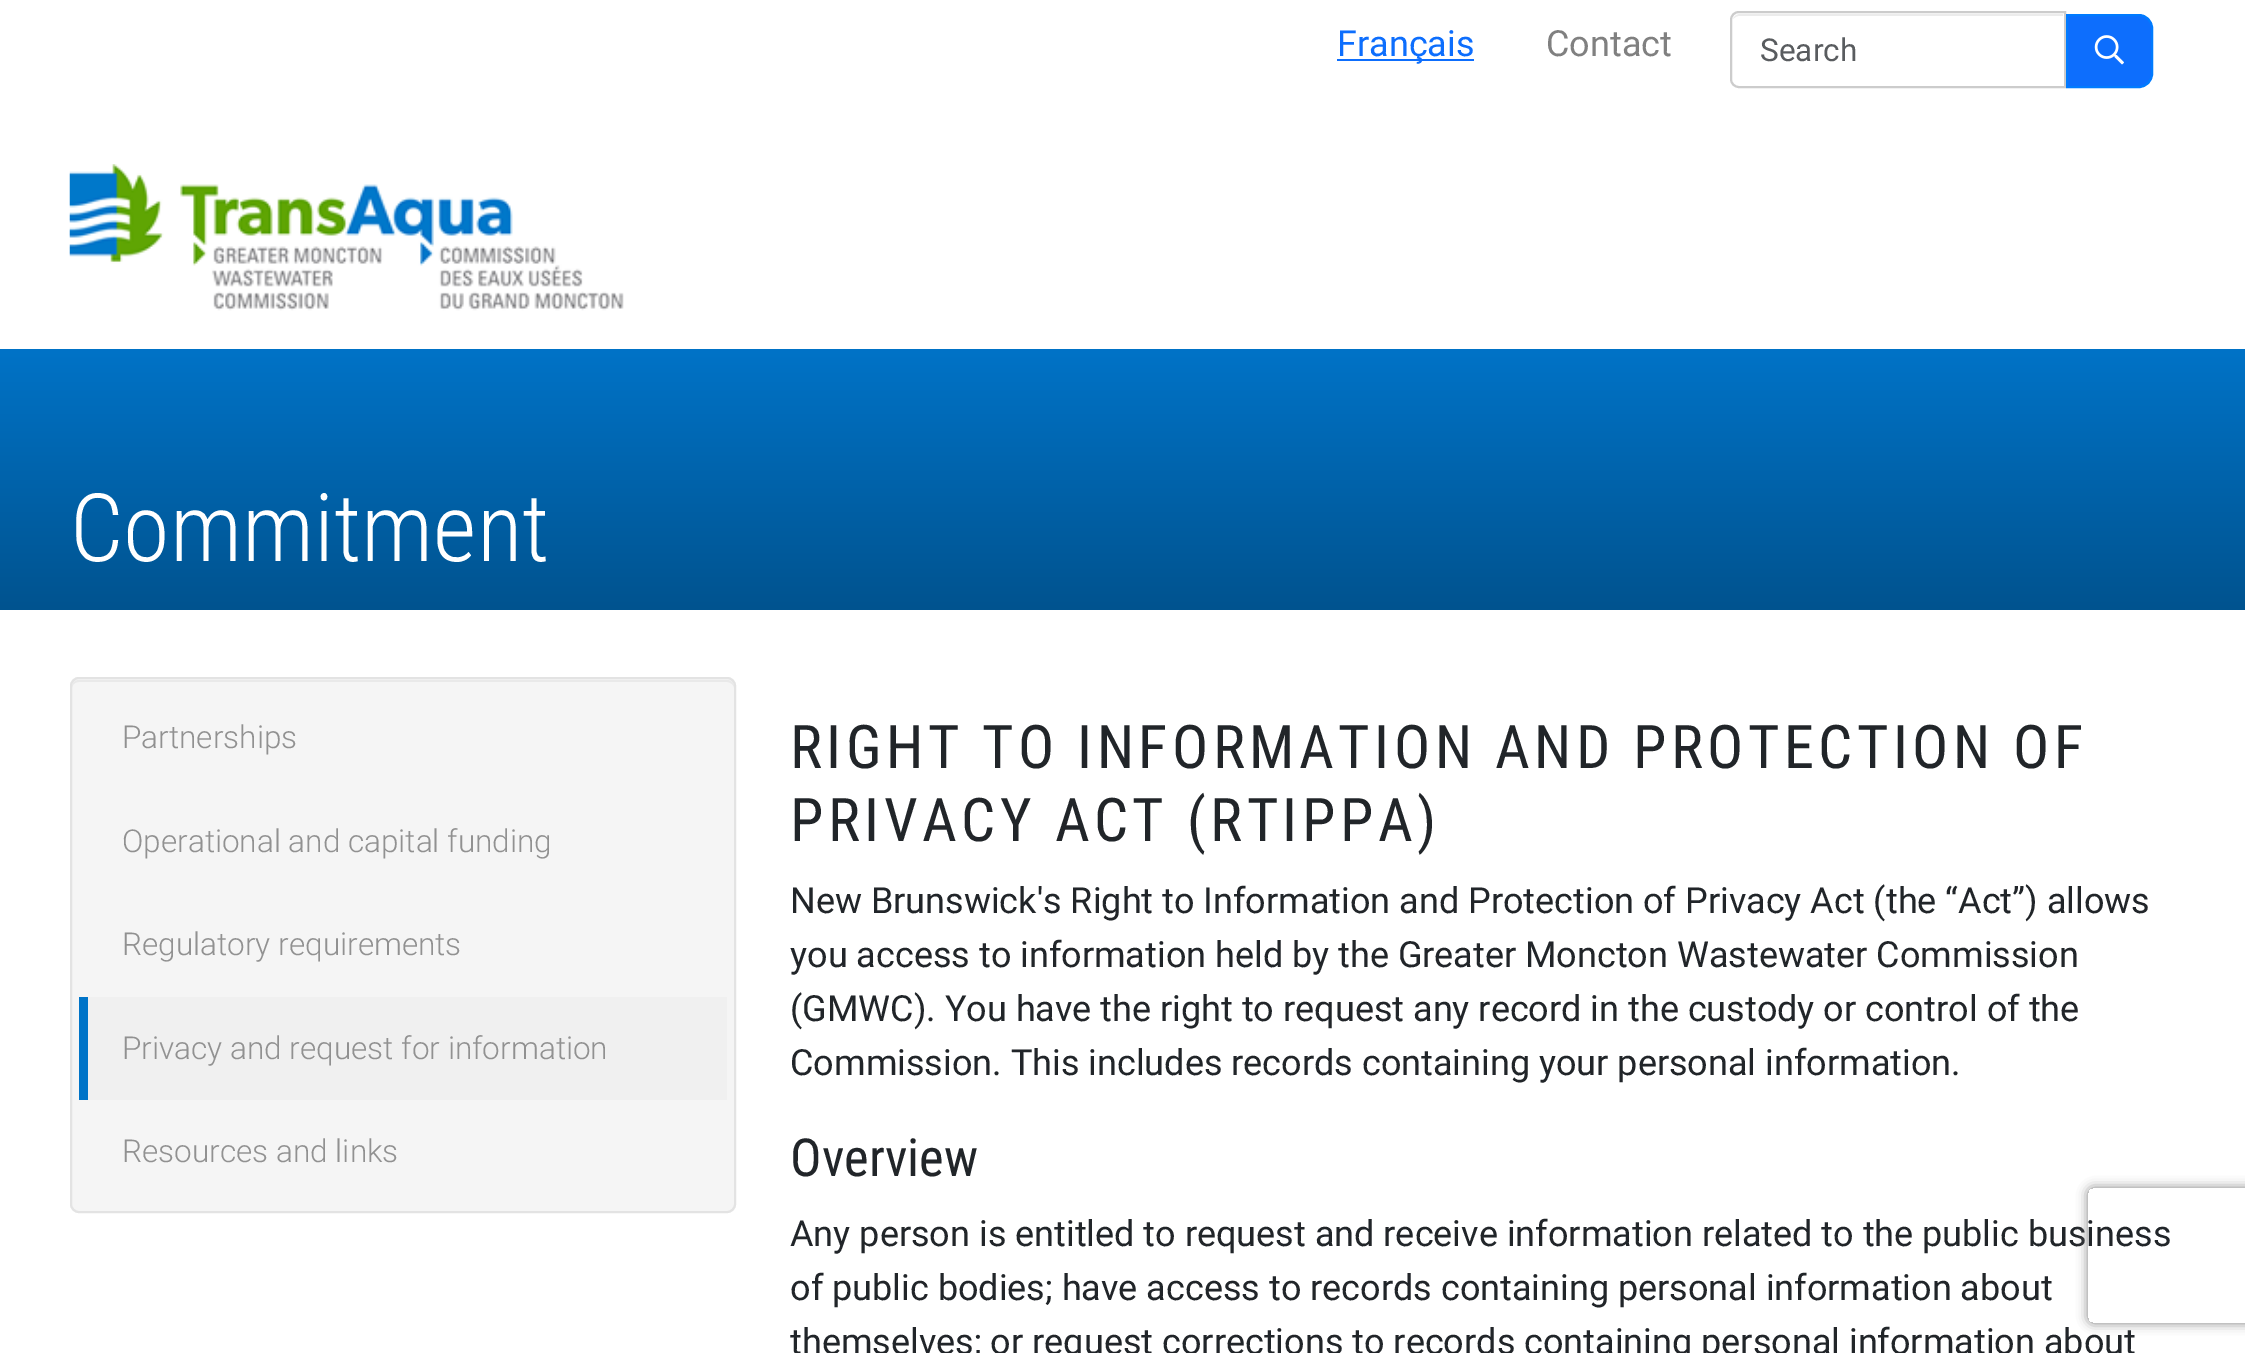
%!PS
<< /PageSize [2245 1353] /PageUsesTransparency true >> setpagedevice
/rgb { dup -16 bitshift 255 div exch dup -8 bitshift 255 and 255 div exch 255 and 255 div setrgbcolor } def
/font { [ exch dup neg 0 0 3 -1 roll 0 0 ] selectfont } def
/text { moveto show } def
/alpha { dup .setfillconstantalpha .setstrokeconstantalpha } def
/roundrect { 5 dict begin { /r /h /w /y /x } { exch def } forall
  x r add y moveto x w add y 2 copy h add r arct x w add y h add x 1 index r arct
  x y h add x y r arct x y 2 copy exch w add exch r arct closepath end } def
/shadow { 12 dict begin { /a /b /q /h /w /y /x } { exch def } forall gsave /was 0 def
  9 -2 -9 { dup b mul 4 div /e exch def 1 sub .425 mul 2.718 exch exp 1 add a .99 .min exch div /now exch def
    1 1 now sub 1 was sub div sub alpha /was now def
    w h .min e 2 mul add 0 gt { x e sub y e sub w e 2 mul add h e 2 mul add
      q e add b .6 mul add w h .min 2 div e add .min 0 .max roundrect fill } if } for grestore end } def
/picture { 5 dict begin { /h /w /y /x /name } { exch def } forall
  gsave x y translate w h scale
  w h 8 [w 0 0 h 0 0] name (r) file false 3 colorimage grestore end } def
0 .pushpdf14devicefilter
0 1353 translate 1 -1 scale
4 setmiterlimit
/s1 { /Roboto-Regular 36 font 16#0D6EFD rgb } def
/s2 { /Roboto-Regular 36 font 16#808080 rgb } def
/s3 { /Roboto-Regular 31.5 font 16#595C5F rgb } def
/s4 { /RobotoCondensed-Light 94.5 font 16#FFFFFF rgb } def
/s5 { /Roboto-Light 31.5 font 16#919191 rgb } def
/s6 { /Roboto-Regular 36 font 16#212529 rgb } def
/s7 { /RobotoCondensed-Regular 52.5 font 16#212529 rgb } def
16#FFFFFF rgb
0 0 2245 1353 rectfill
16#0D6EFD rgb
1337 59 137 2 rectfill
s1
(Français) 1337 56 text
s2
(Contact) 1546 56 text
16#ECECEC rgb
1739 16 moveto 2063 16 lineto 2063 14 lineto 1740 14 lineto 1737 14 1734 16 1733 19 curveto 1735 17 1737 16 1739 16 curveto closepath fill
16#CCCCCC rgb
2 setlinewidth
1739 12 moveto 2065 12 lineto 2065 87 lineto 1739 87 lineto 1734.5 87 1731 83.5 1731 79 curveto 1731 20 lineto 1731 15.5 1734.5 12 1739 12 curveto closepath stroke
s3
(Search) 1760 61 text
16#0D6EFD rgb
2067 15 moveto 2139 15 lineto 2146 15 2152 21 2152 28 curveto 2152 74 lineto 2152 81 2146 87 2139 87 curveto 2067 87 lineto closepath gsave fill grestore
16#007BFF rgb
stroke
(pic1.raw) 2094 35 30 30 picture
(pic2.raw) 69 164 555 147 picture
gsave 0 349 moveto 2245 349 lineto 2245 610 lineto 0 610 lineto closepath clip newpath
<< /ShadingType 2 /ColorSpace /DeviceRGB /Coords [1123 349 1123 610] /Extend [true true] /Function << /FunctionType 2 /Domain [0 1] /C0 [0 0.451 0.78] /C1 [0 0.325 0.561] /N 1 >> >> shfill grestore
s4
(Commitment) 70 561 text
16#F5F5F5 rgb
70 677 666 536 9 roundrect fill
16#E9E9E9 rgb
79 682 moveto 727 682 lineto 730 682 734 685 734 688 curveto 734 687 lineto 734 683 731 680 727 680 curveto 79 680 lineto 75 680 72 683 72 687 curveto 72 688 lineto 72 685 75 682 79 682 curveto closepath fill
16#E3E3E3 rgb
71 678 664 534 8 roundrect stroke
s5
(Partnerships) 122 748 text
(Operational and capital funding) 122 852 text
(Regulatory requirements) 122 955 text
16#F0F0F0 rgb
88 997 639 103 rectfill
16#0074C8 rgb
79 997 9 103 rectfill
s5
(Privacy and request for information) 122 1059 text
(Resources and links) 122 1162 text
/RobotoCondensed-Regular 60.25 font
16#212529 rgb
790 768 moveto 4.5 0 (RIGHT TO INFORMATION AND PROTECTION OF) ashow
790 841 moveto 4.5 0 (PRIVACY ACT \(RTIPPA\)) ashow
s6
(New Brunswick's Right to Information and Protection of Privacy Act \(the “Act”\) allows) 790 913 text
(you access to information held by the Greater Moncton Wastewater Commission) 790 967 text
(\(GMWC\). You have the right to request any record in the custody or control of the) 790 1021 text
(Commission. This includes records containing your personal information.) 790 1075 text
s7
(Overview) 790 1176 text
s6
(Any person is entitled to request and receive information related to the public business) 790 1246 text
(of public bodies; have access to records containing personal information about) 790 1300 text
(themselves; or request corrections to records containing personal information about) 790 1354 text
gsave
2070 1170 moveto 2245 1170 lineto 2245 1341 lineto 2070 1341 lineto closepath 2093 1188 moveto 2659 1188 lineto 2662 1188 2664 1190 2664 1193 curveto 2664 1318 lineto 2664 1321 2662 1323 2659 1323 curveto 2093 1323 lineto 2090 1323 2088 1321 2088 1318 curveto 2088 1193 lineto 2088 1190 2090 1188 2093 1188 curveto closepath eoclip newpath
16#808080 rgb
2088 1188 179 135 5 5.5 1 shadow
grestore
.poppdf14devicefilter showpage
